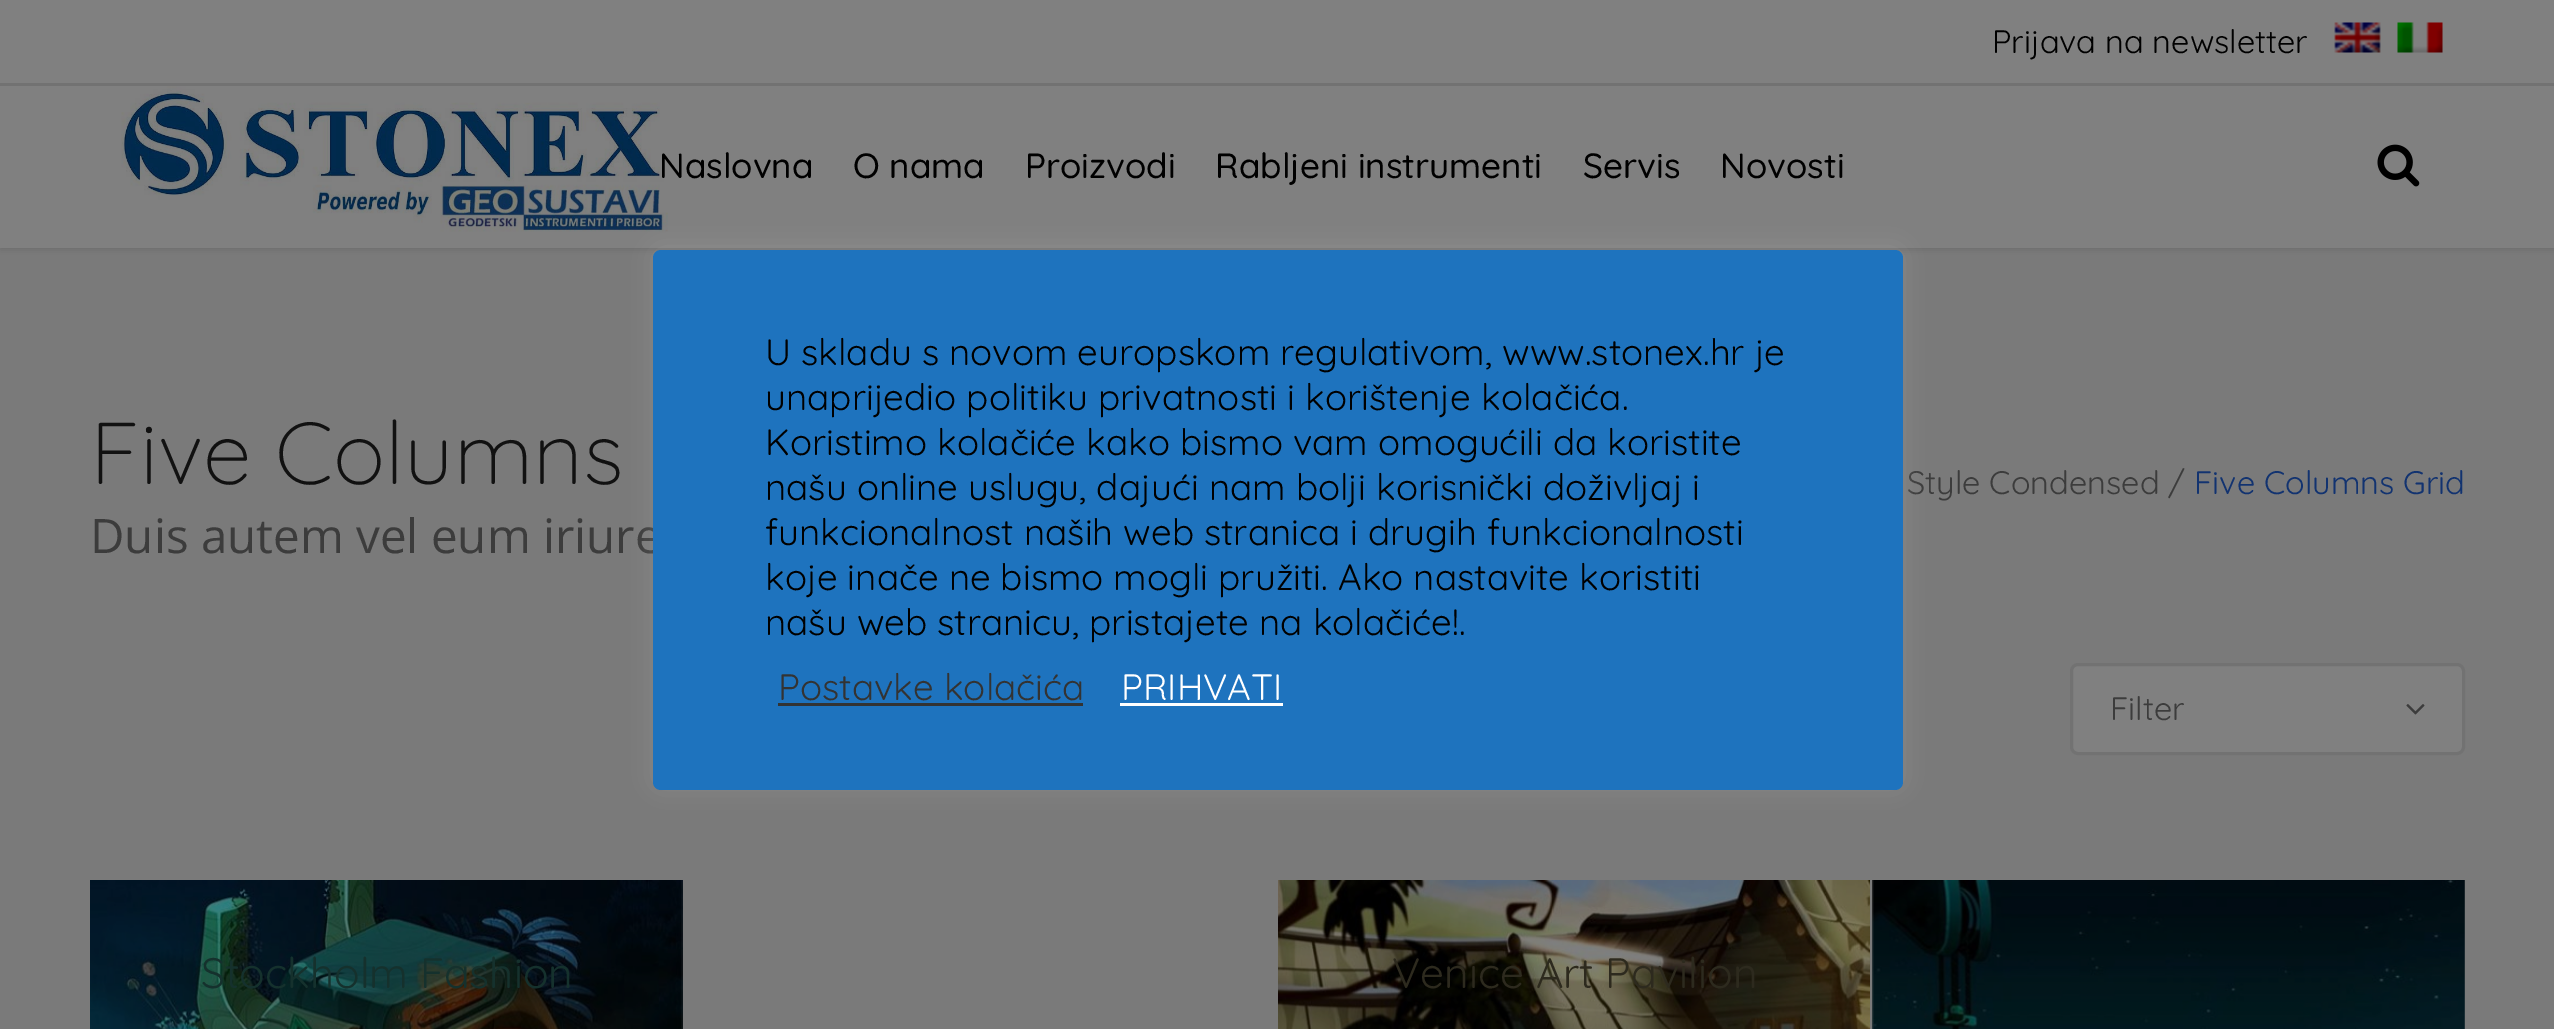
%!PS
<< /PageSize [2554 1029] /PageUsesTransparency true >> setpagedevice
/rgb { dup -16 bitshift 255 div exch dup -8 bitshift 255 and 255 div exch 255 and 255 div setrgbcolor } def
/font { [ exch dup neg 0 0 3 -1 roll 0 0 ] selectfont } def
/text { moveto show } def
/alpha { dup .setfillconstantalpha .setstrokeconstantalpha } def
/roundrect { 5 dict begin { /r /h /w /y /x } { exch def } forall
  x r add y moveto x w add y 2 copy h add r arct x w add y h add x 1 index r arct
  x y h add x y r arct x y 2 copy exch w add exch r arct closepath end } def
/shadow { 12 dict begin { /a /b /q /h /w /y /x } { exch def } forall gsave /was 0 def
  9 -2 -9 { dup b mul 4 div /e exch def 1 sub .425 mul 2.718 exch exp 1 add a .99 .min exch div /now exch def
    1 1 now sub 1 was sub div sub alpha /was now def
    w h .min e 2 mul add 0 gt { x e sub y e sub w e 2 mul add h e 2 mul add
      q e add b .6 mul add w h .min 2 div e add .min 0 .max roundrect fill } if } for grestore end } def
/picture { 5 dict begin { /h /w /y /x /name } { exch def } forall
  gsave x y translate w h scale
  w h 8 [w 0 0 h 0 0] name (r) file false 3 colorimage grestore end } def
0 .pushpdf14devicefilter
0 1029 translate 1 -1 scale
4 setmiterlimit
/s1 { /Quicksand-Regular 32.5 font 16#000000 rgb } def
/s2 { /Quicksand-Medium 35 font 16#000000 rgb } def
/s3 { /Quicksand-Light 87.5 font 16#111111 rgb } def
/s4 { /Quicksand-Regular 32.5 font 16#3C3C3C rgb } def
/s5 { /Quicksand-Regular 32.5 font 16#123370 rgb } def
/s6 { /OpenSans-Regular 47.5 font 16#3C3C3C rgb } def
/s7 { /Quicksand-Regular 42.5 font 16#15312D rgb } def
/s8 { /Quicksand-Regular 42.5 font 16#2D2A1E rgb } def
/s9 { /Quicksand-Regular 36.7 font 16#000000 rgb } def
/s10 { /Quicksand-Regular 36.7 font 16#333333 rgb } def
/s11 { /Quicksand-Regular 36.7 font 16#FFFFFF rgb } def
16#7A7A7A rgb
0 0 2554 1029 rectfill
16#000000 rgb
0 88 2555 162 0 4 0.11 shadow
16#808080 rgb
0 0 2554 83 rectfill
16#727272 rgb
0 83 2554 3 rectfill
s1
(Prijava na newsletter) 1992 53 text
(pic1.raw) 2334 22 47 31 picture
(pic2.raw) 2397 22 46 31 picture
16#808080 rgb
0 86 2554 162 rectfill
(pic3.raw) 121 86 547 146 picture
s2
(Naslovna) 659 178 text
(O nama) 853 178 text
(Proizvodi) 1025 178 text
(Rabljeni instrumenti) 1215 178 text
(Servis) 1583 178 text
(Novosti) 1720 178 text
(pic4.raw) 2377 144 43 43 picture
s3
(Five Columns) 90 484 text
s4
(Style Condensed /) 1907 494 text
s5
(Five Columns Grid) 2194 494 text
s6
(Duis autem vel eum iriure) 90 553 text
16#808080 rgb
2071.5 664.5 392 89 6.5 roundrect gsave fill grestore
16#727272 rgb
3 setlinewidth
stroke
s4
(Filter) 2110 720 text
(pic5.raw) 2406 704 19 11 picture
(pic6.raw) 90 880 593 149 picture
s7
(Stockholm Fashion) 201 988 text
(pic7.raw) 1278 880 592 149 picture
s8
(Venice Art Pavilion) 1392 988 text
(pic8.raw) 1872 880 593 149 picture
16#ACABAB rgb
653 248 1250 540 8 12.5 0.3 shadow
16#1E73BE rgb
653 250 1250 540 8 roundrect fill
s9
(U skladu s novom europskom regulativom, www.stonex.hr je) 765 365 text
(unaprijedio politiku privatnosti i korištenje kolačića.) 765 410 text
(Koristimo kolačiće kako bismo vam omogućili da koristite) 765 455 text
(našu online uslugu, dajući nam bolji korisnički doživljaj i) 765 500 text
(funkcionalnost naših web stranica i drugih funkcionalnosti) 765 545 text
(koje inače ne bismo mogli pružiti. Ako nastavite koristiti) 765 590 text
(našu web stranicu, pristajete na kolačiće!.) 765 635 text
s10
(Postavke kolačića) 778 700 text
778 703 305 3 rectfill
s11
(PRIHVATI) 1121 700 text
1120 703 163 3 rectfill
.poppdf14devicefilter showpage
